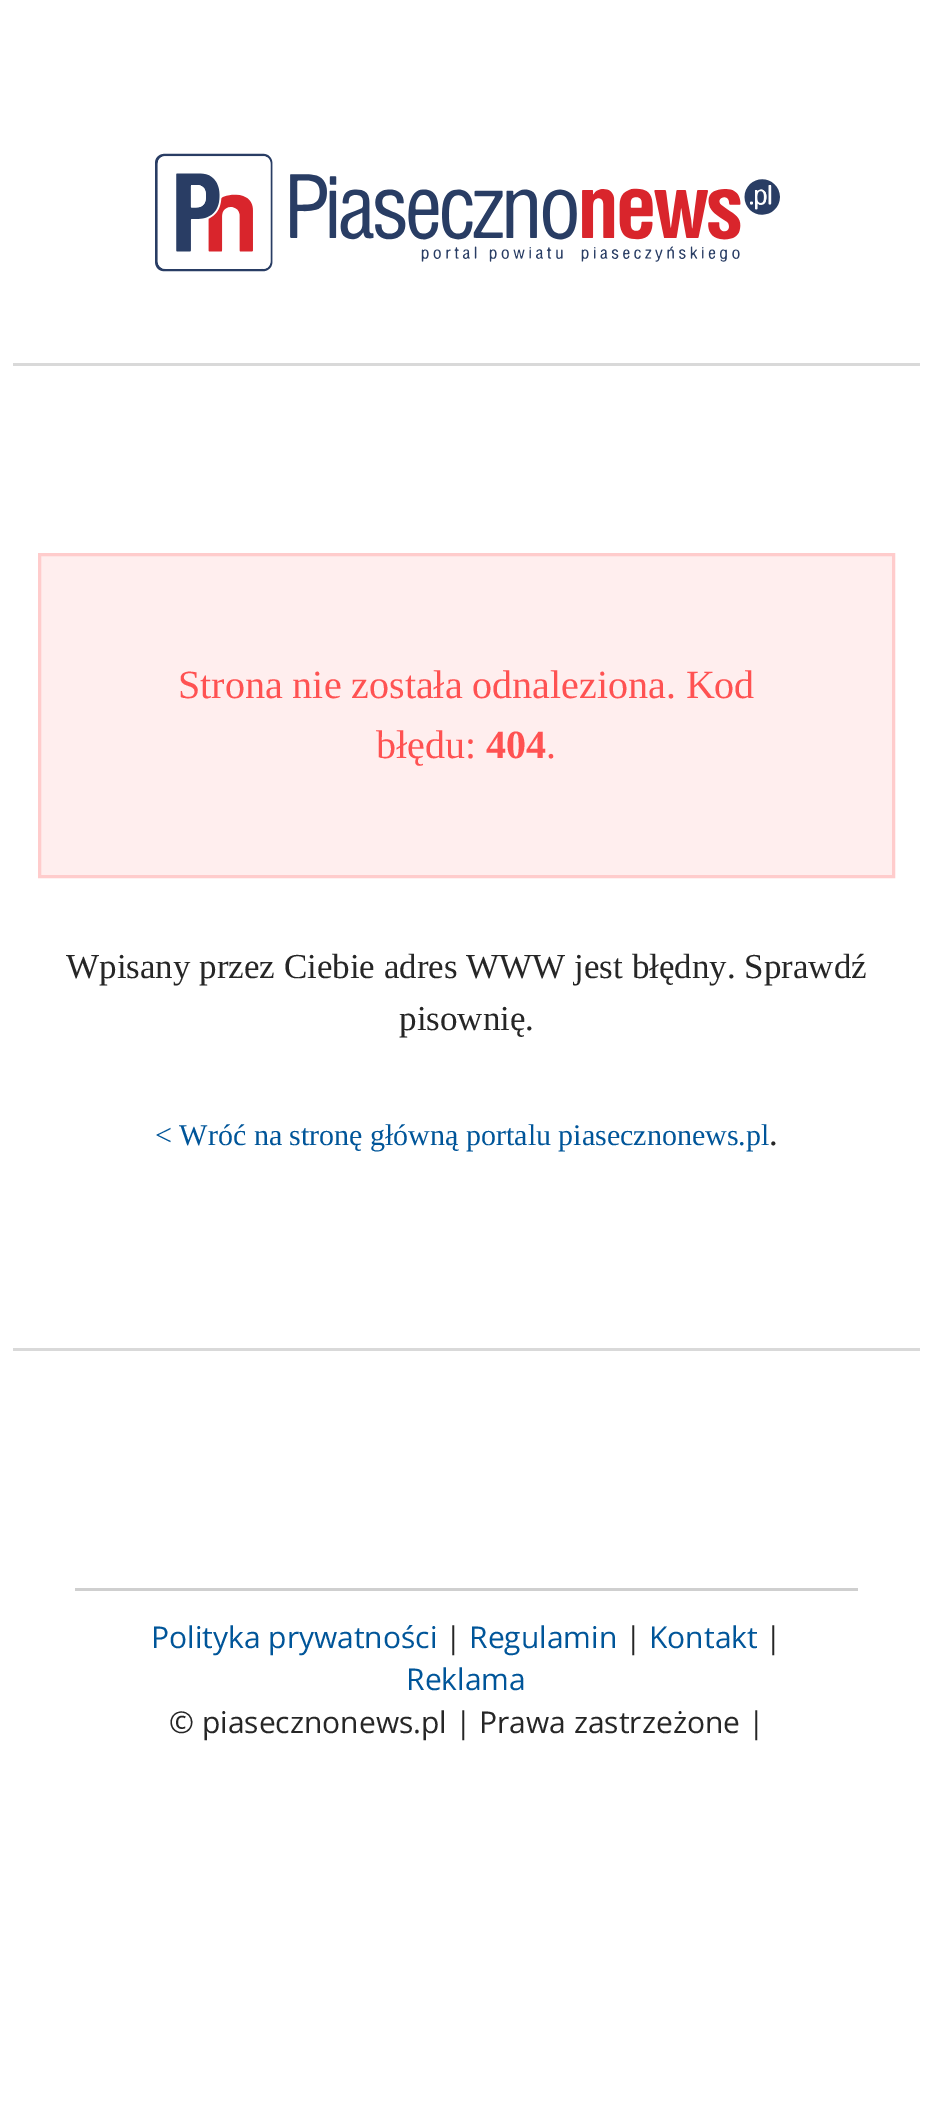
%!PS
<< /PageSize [931 2112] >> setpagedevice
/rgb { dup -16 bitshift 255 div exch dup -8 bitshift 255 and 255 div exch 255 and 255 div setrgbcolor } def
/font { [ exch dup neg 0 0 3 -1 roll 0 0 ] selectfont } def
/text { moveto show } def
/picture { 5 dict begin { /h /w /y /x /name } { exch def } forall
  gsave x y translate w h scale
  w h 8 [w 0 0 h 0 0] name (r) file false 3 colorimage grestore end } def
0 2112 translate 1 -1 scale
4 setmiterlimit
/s1 { /LiberationSerif-Regular 40 font 16#FF5252 rgb } def
/s2 { /LiberationSerif-Bold 40 font 16#FF5252 rgb } def
/s3 { /LiberationSerif-Regular 35 font 16#262626 rgb } def
/s4 { /LiberationSerif-Regular 30 font 16#005599 rgb } def
/s5 { /OpenSans-Regular 30 font 16#005599 rgb } def
/s6 { /OpenSans-Regular 30 font 16#262626 rgb } def
16#FFFFFF rgb
0 0 931 2112 rectfill
(pic1.raw) 155 153 625 119 picture
16#D9D9D9 rgb
13 363 907 3 rectfill
13 1348 907 3 rectfill
16#FFEEEE rgb
39.5 554.5 moveto 893.5 554.5 lineto 893.5 876.5 lineto 39.5 876.5 lineto closepath gsave fill grestore
16#FFCCCC rgb
3 setlinewidth
stroke
s1
(Strona nie została odnaleziona. Kod) 178 698 text
(błędu:) 376 758 text
s2
(404) 486 758 text
s1
(.) 546 758 text
s3
(Wpisany przez Ciebie adres WWW jest błędny. Sprawdź) 66 978 text
(pisownię.) 399 1030 text
s4
(< Wróć na stronę główną portalu piasecznonews.pl) 155 1145 text
s3
(.) 769 1145 text
16#CFCFCF rgb
75 1588 783 3 rectfill
s5
(Polityka prywatności) 151 1648 text
s6
(|) 445 1648 text
s5
(Regulamin) 469 1648 text
s6
(|) 625 1648 text
s5
(Kontakt) 649 1648 text
s6
(|) 765 1648 text
s5
(Reklama) 406 1690 text
s6
(© piasecznonews.pl | Prawa zastrzeżone |) 169 1733 text
showpage
